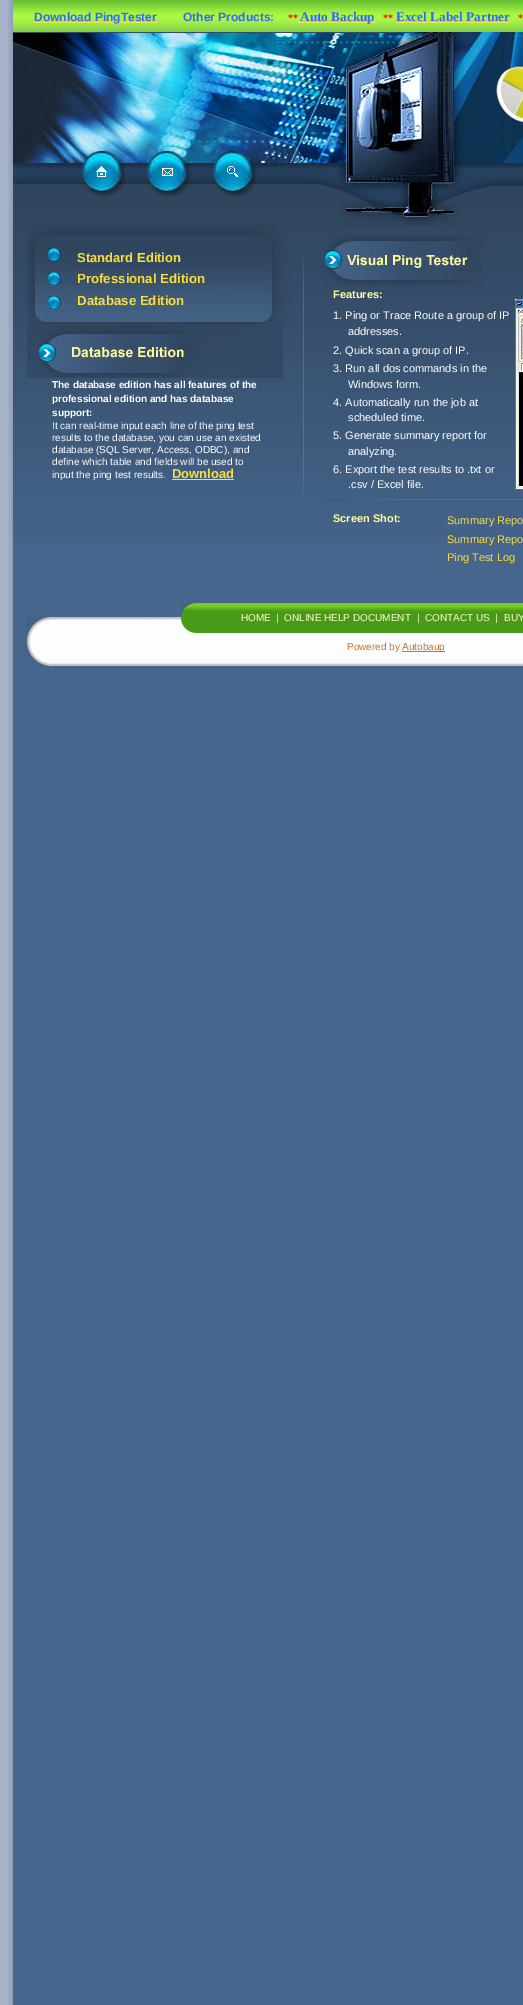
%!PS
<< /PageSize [523 2005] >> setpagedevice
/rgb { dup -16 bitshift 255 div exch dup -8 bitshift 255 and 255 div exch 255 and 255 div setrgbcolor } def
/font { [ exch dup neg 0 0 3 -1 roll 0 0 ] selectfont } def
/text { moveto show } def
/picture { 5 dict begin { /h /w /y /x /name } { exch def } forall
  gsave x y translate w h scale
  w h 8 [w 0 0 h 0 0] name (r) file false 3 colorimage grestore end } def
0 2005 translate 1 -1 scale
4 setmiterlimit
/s1 { /LiberationSans-Bold 12 font 16#3366FF rgb } def
/s2 { /LiberationSerif-Bold 10 font 16#FF0000 rgb } def
/s3 { /LiberationSerif-Bold 13.25 font 16#3366FF rgb } def
/s4 { /LiberationSans-Bold 13 font 16#FBDE3B rgb } def
/s5 { /LiberationSans-Bold 13.25 font 16#FBDE3B rgb } def
/s6 { /LiberationSans-Bold 10 font 16#FFFFFF rgb } def
/s7 { /LiberationSans-Regular 10 font 16#FFFFFF rgb } def
/s8 { /LiberationSans-Bold 11 font 16#FFFF99 rgb } def
/s9 { /LiberationSans-Regular 11 font 16#FFFFFF rgb } def
/s10 { /LiberationSans-Regular 11 font 16#FBDE3B rgb } def
/s11 { /LiberationSans-Regular 10 font 16#F8FBC8 rgb } def
/s12 { /LiberationSans-Regular 10 font 16#D96D1E rgb } def
16#A6B3CB rgb
0 0 523 2005 rectfill
(pic1.raw) 7 0 516 2005 picture
(pic2.raw) 13 0 510 32 picture
16#FBDE3B rgb
34 22 123 1 rectfill
s1
(Download PingTester) 34 21 text
(Other Products:) 183 21 text
s2
(**) 288 21 text
16#FBDE3B rgb
300 22 76 1 rectfill
s3
(Auto Backup) 300 21 text
16#FFFFFF rgb
298 22 2 1 rectfill
s2
(**) 383 21 text
s3
(Excel Label Partner) 396 21 text
16#FBDE3B rgb
396 22 114 1 rectfill
s2
(*) 518 21 text
(pic3.raw) 13 32 480 114 picture
(pic4.raw) 493 32 30 114 picture
(pic5.raw) 260 146 263 51 picture
(pic6.raw) 13 146 59 51 picture
(pic7.raw) 72 146 61 51 picture
(pic8.raw) 133 146 68 51 picture
(pic9.raw) 201 146 59 51 picture
(pic11.raw) 13 197 510 345 picture
(pic10.raw) 340 197 120 29 picture
(pic12.raw) 303 250 1 247 picture
(pic13.raw) 27 222 262 103 picture
s4
(Standard Edition) 77 262 text
s5
(Professional Edition) 77 283 text
(Database Edition) 77 305 text
(pic14.raw) 27 325 256 53 picture
s6
(The database edition has all features of the) 52 388 text
(professional edition and has database) 52 402 text
(support:) 52 416 text
s7
(It can real-time input each line of the ping test) 52 429 text
(results to the database, you can use an existed) 52 441 text
(database \(SQL Server, Access, ODBC\), and) 52 453 text
(define which table and fields will be used to) 52 465 text
(input the ping test results.) 52 478 text
s4
(Download) 172 478 text
172 479 62 1 rectfill
(pic15.raw) 323 236 160 50 picture
s8
(Features:) 333 298 text
s9
(1. Ping or Trace Route a group of IP) 333 319 text
(addresses.) 348 335 text
(2. Quick scan a group of IP.) 333 354 text
(3. Run all dos commands in the) 333 372 text
(Windows form.) 348 388 text
(4. Automatically run the job at) 333 406 text
(scheduled time.) 348 421 text
(5. Generate summary report for) 333 439 text
(analyzing.) 348 455 text
(6. Export the test results to .txt or) 333 473 text
(.csv / Excel file.) 348 488 text
(pic16.raw) 515 299 8 191 picture
(pic17.raw) 323 499 200 1 picture
s8
(Screen Shot:) 333 522 text
s10
(Summary Repo) 447 524 text
(Summary Repo) 447 543 text
(Ping Test Log) 447 561 text
(pic18.raw) 51 617 472 49 picture
(pic19.raw) 27 617 24 49 picture
(pic20.raw) 196 603 327 30 picture
(pic21.raw) 181 603 15 30 picture
s11
(HOME) 241 621 text
(|) 276 621 text
(ONLINE HELP DOCUMENT) 284 621 text
(|) 417 621 text
(CONTACT US) 425 621 text
(|) 495 621 text
(BUY) 504 621 text
s12
(Powered by) 347 650 text
402 651 43 1 rectfill
(Autobaup) 402 650 text
showpage
